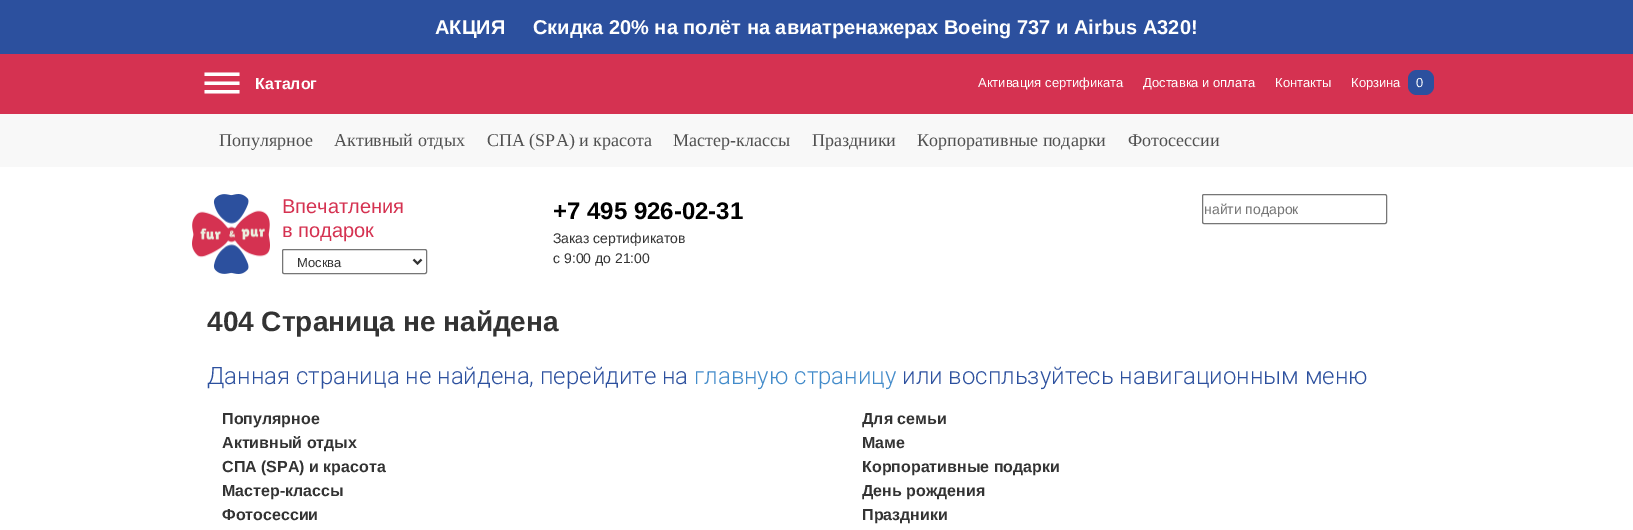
%!PS
<< /PageSize [1633 530] >> setpagedevice
/rgb { dup -16 bitshift 255 div exch dup -8 bitshift 255 and 255 div exch 255 and 255 div setrgbcolor } def
/font { [ exch dup neg 0 0 3 -1 roll 0 0 ] selectfont } def
/text { moveto show } def
/roundrect { 5 dict begin { /r /h /w /y /x } { exch def } forall
  x r add y moveto x w add y 2 copy h add r arct x w add y h add x 1 index r arct
  x y h add x y r arct x y 2 copy exch w add exch r arct closepath end } def
/picture { 5 dict begin { /h /w /y /x /name } { exch def } forall
  gsave x y translate w h scale
  w h 8 [w 0 0 h 0 0] name (r) file false 3 colorimage grestore end } def
0 530 translate 1 -1 scale
4 setmiterlimit
/s1 { /LiberationSans-Bold 20 font 16#FFFFFF rgb } def
/s2 { /LiberationSans-Regular 13 font 16#FFFFFF rgb } def
/s3 { /LiberationSans-Regular 13 font 16#333333 rgb } def
/s4 { /LiberationSans-Bold 24 font 16#000000 rgb } def
/s5 { /LiberationSans-Regular 14 font 16#333333 rgb } def
/s6 { /LiberationSans-Bold 16 font 16#FFFFFF rgb } def
/s7 { /LiberationSans-Regular 20 font 16#D53251 rgb } def
/s8 { /LiberationSans-Regular 14 font 16#757575 rgb } def
/s9 { /LiberationSerif-Regular 18 font 16#515151 rgb } def
/s10 { /LiberationSans-Bold 28 font 16#333333 rgb } def
/s11 { /Roboto-Light 24 font 16#2C509E rgb } def
/s12 { /Roboto-Light 24 font 16#428BCA rgb } def
/s13 { /LiberationSans-Bold 16 font 16#333333 rgb } def
16#FFFFFF rgb
0 0 1633 530 rectfill
16#2C509E rgb
0 0 1633 54 rectfill
s1
(АКЦИЯ     Скидка 20% на полёт на авиатренажерах Boeing 737 и Airbus A320!) 435 34 text
16#D53251 rgb
0 54 1633 60 rectfill
s2
(Активация сертификата) 978 87 text
(Доставка и оплата) 1143 87 text
(Контакты) 1275 87 text
(Корзина) 1351 87 text
16#2C509E rgb
1408 70 26 25 9 roundrect fill
s2
(0) 1416 87 text
16#767676 rgb
282.5 249.5 144 24 1.5 roundrect stroke
16#333333 rgb
2 setlinewidth
413.5 259.5 moveto 417.5 263.5 lineto 421.5 259.5 lineto stroke
(Москва) 297 267 text
s4
(+7 495 926-02-31) 553 219 text
s5
(Заказ сертификатов) 553 243 text
(с 9:00 до 21:00) 553 263 text
16#FFFFFF rgb
204.5 72.5 moveto 239.5 72.5 lineto 239.5 76 lineto 204.5 76 lineto closepath 204.5 81.5 moveto 239.5 81.5 lineto 239.5 85 lineto 204.5 85 lineto closepath 204.5 90 moveto 239.5 90 lineto 239.5 93.5 lineto 204.5 93.5 lineto closepath eofill
s6
(Каталог) 255 89 text
(pic1.raw) 192 194 78 80 picture
s7
(Впечатления) 282 213 text
(в подарок) 282 237 text
16#767676 rgb
1 setlinewidth
1202.5 194.5 184 29 1.5 roundrect stroke
s8
(найти подарок) 1204 214 text
16#F8F8F8 rgb
0 114 1633 53 rectfill
s9
(Популярное) 219 146 text
(Активный отдых) 334 146 text
(СПА \(SPA\) и красота) 487 146 text
(Мастер-классы) 673 146 text
(Праздники) 812 146 text
(Корпоративные подарки) 917 146 text
(Фотосессии) 1128 146 text
s10
(404 Страница не найдена) 207 331 text
s11
(Данная страница не найдена, перейдите на) 207 384 text
s12
(главную страницу) 694 384 text
s11
(или воспльзуйтесь навигационным меню) 902 384 text
s13
(Популярное) 222 424 text
(Активный отдых) 222 448 text
(СПА \(SPA\) и красота) 222 472 text
(Мастер-классы) 222 496 text
(Фотосессии) 222 520 text
(Для семьи) 862 424 text
(Маме) 862 448 text
(Корпоративные подарки) 862 472 text
(День рождения) 862 496 text
(Праздники) 862 520 text
showpage
